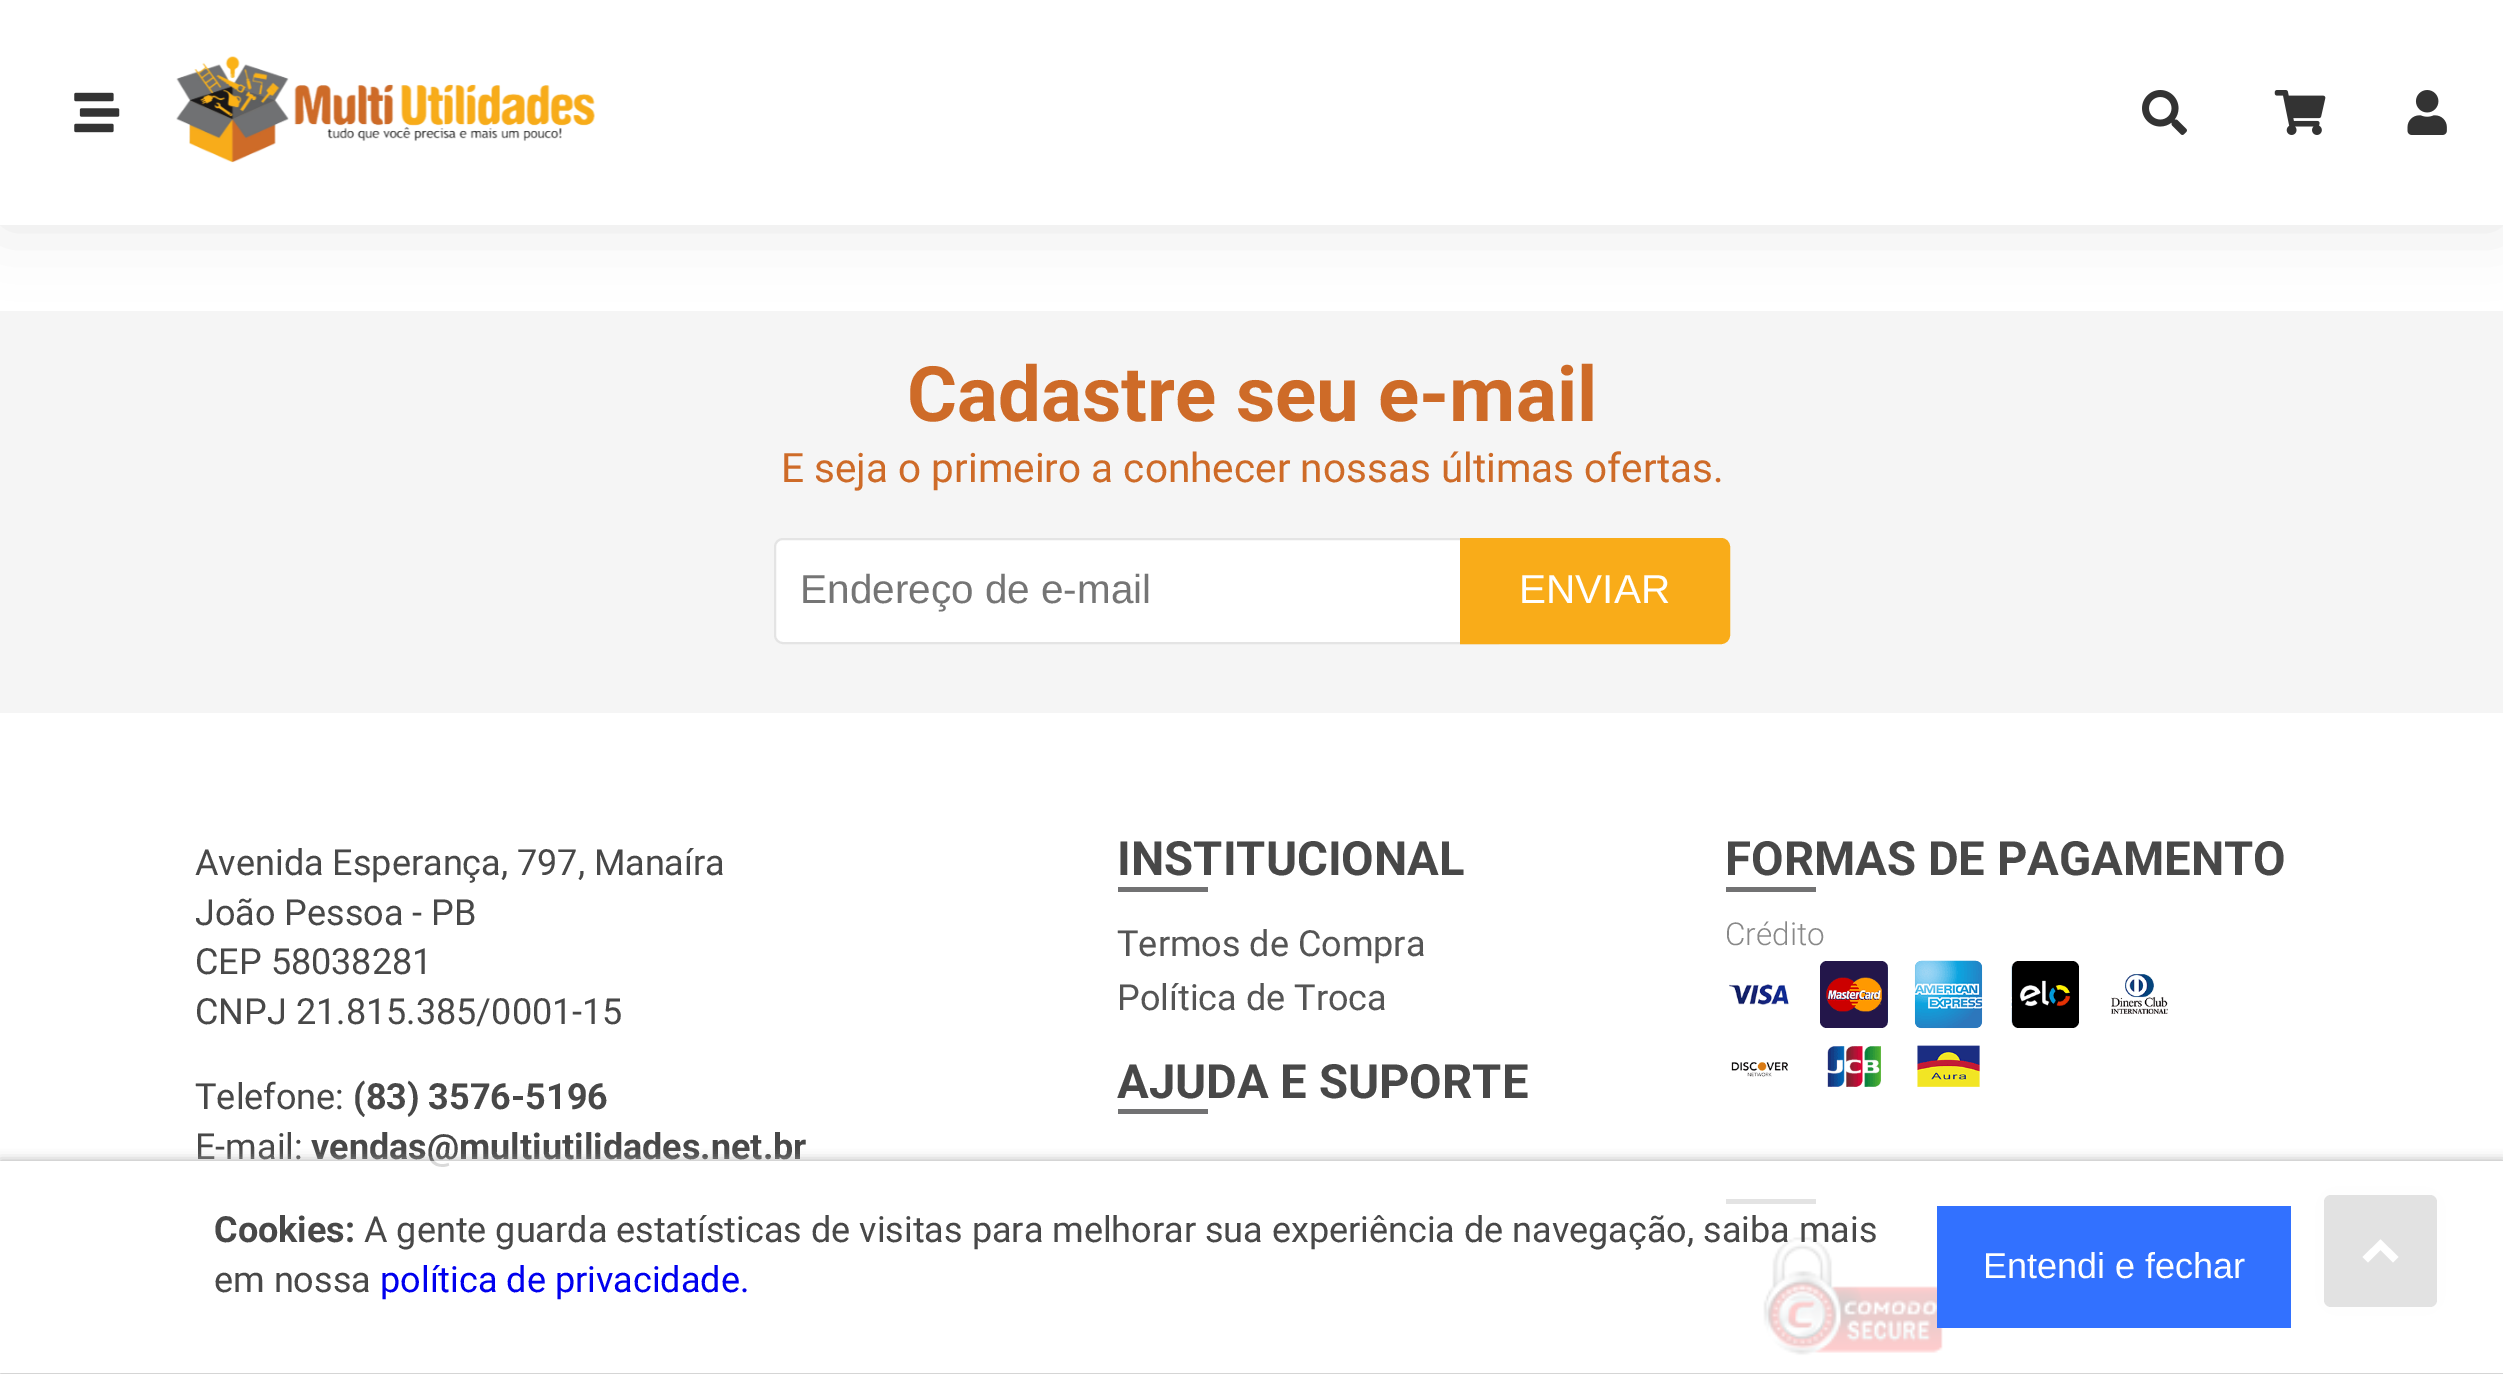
%!PS
<< /PageSize [2503 1374] /PageUsesTransparency true >> setpagedevice
/rgb { dup -16 bitshift 255 div exch dup -8 bitshift 255 and 255 div exch 255 and 255 div setrgbcolor } def
/font { [ exch dup neg 0 0 3 -1 roll 0 0 ] selectfont } def
/text { moveto show } def
/alpha { dup .setfillconstantalpha .setstrokeconstantalpha } def
/roundrect { 5 dict begin { /r /h /w /y /x } { exch def } forall
  x r add y moveto x w add y 2 copy h add r arct x w add y h add x 1 index r arct
  x y h add x y r arct x y 2 copy exch w add exch r arct closepath end } def
/shadow { 12 dict begin { /a /b /q /h /w /y /x } { exch def } forall gsave /was 0 def
  9 -2 -9 { dup b mul 4 div /e exch def 1 sub .425 mul 2.718 exch exp 1 add a .99 .min exch div /now exch def
    1 1 now sub 1 was sub div sub alpha /was now def
    w h .min e 2 mul add 0 gt { x e sub y e sub w e 2 mul add h e 2 mul add
      q e add b .6 mul add w h .min 2 div e add .min 0 .max roundrect fill } if } for grestore end } def
/picture { 5 dict begin { /h /w /y /x /name } { exch def } forall
  gsave x y translate w h scale
  w h 8 [w 0 0 h 0 0] name (r) file false 3 colorimage grestore end } def
0 .pushpdf14devicefilter
0 1374 translate 1 -1 scale
4 setmiterlimit
/s1 { /Roboto-Bold 76.5 font 16#CE6B28 rgb } def
/s2 { /Roboto-Regular 40.5 font 16#CE6B28 rgb } def
/s3 { /LiberationSans-Regular 40.5 font 16#757575 rgb } def
/s4 { /LiberationSans-Regular 40.5 font 16#FFFFFF rgb } def
/s5 { /Roboto-Regular 36 font 16#484848 rgb } def
/s6 { /Roboto-Bold 36 font 16#484848 rgb } def
/s7 { /Roboto-Bold 47.25 font 16#484848 rgb } def
/s8 { /Roboto-Regular 36 font 16#555555 rgb } def
/s9 { /Roboto-Light 31.5 font 16#888888 rgb } def
/s10 { /Roboto-Regular 36 font 16#0000EE rgb } def
/s11 { /LiberationSans-Regular 36 font 16#FFFFFF rgb } def
16#FFFFFF rgb
0 0 2503 1374 rectfill
16#F5F5F5 rgb
0 311 2503 402 rectfill
16#000000 rgb
0 0 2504 225 0 34 0.1 shadow
16#FFFFFF rgb
0 0 2503 225 rectfill
(pic1.raw) 74 92 46 41 picture
(pic2.raw) 176 56 419 107 picture
(pic3.raw) 2142 90 45 45 picture
(pic4.raw) 2274 90 52 45 picture
(pic5.raw) 2407 90 40 45 picture
s1
(Cadastre seu e-mail) 907 421 text
s2
(E seja o primeiro a conhecer nossas últimas ofertas.) 781 482 text
16#FFFFFF rgb
783 539 moveto 1498 539 lineto 1498 643 lineto 783 643 lineto 778.5 643 775 639.5 775 635 curveto 775 547 lineto 775 542.5 778.5 539 783 539 curveto closepath gsave fill grestore
16#E4E4E4 rgb
2 setlinewidth
stroke
s3
(Endereço de e-mail) 800 603 text
16#F9AC19 rgb
1461 539 moveto 1721 539 lineto 1725.5 539 1729 542.5 1729 547 curveto 1729 635 lineto 1729 639.5 1725.5 643 1721 643 curveto 1461 643 lineto closepath gsave fill grestore
stroke
s4
(ENVIAR) 1519 603 text
s5
(Avenida Esperança, 797, Manaíra) 195 875 text
(João Pessoa - PB) 195 925 text
(CEP 58038281) 195 974 text
(CNPJ 21.815.385/0001-15) 195 1024 text
(Telefone:) 195 1109 text
s6
(\(83\) 3576-5196) 353 1109 text
s5
(E-mail:) 195 1159 text
s6
(vendas@multiutilidades.net.br) 311 1159 text
s7
(INSTITUCIONAL) 1117 875 text
16#727273 rgb
1118 887 90 5 rectfill
s8
(Termos de Compra) 1117 956 text
(Política de Troca) 1117 1010 text
s7
(AJUDA E SUPORTE) 1117 1098 text
16#727273 rgb
1118 1109 90 5 rectfill
s7
(FORMAS DE PAGAMENTO) 1725 875 text
16#727273 rgb
1726 887 90 5 rectfill
s9
(Crédito) 1725 945 text
(pic6.raw) 1729 984 60 21 picture
16#23164A rgb
1820 961 68 67 7 roundrect fill
(pic7.raw) 1826 966 62 58 picture
(pic8.raw) 1914 960 69 69 picture
16#000000 rgb
2012 961 67 67 7 roundrect fill
(pic9.raw) 2011 965 60 59 picture
(pic10.raw) 2111 974 57 40 picture
(pic11.raw) 1731 1062 57 15 picture
(pic12.raw) 1827 1046 54 41 picture
(pic13.raw) 1917 1045 63 42 picture
16#727273 rgb
1726 1199 90 5 rectfill
(pic14.raw) 1763 1237 180 119 picture
16#333333 rgb
2324 1195 113 112 7 11 0.05 shadow
16#707070 rgb
2324 1195 113 112 7 roundrect fill
16#FFFFFF rgb
2380.5 1239.5 moveto 2398.5 1257 lineto 2393 1262.5 lineto 2380.5 1250 lineto 2368 1262.5 lineto 2362.5 1257 lineto closepath fill
gsave
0 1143 moveto 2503 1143 lineto 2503 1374 lineto 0 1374 lineto closepath 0 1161 moveto 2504 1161 lineto 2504 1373 lineto 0 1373 lineto closepath eoclip newpath
16#AAAAAA rgb
0 1161 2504 212 0 5.5 1 shadow
grestore
0.8 alpha
0 1161 2503 212 rectfill
1 alpha
s6
(Cookies:) 214 1242 text
s5
(A gente guarda estatísticas de visitas para melhorar sua experiência de navegação, saiba mais) 364 1242 text
(em nossa) 214 1292 text
s10
(política de privacidade.) 380 1292 text
16#3271FF rgb
1937 1206 354 122 rectfill
s11
(Entendi e fechar) 1983 1278 text
.poppdf14devicefilter showpage
